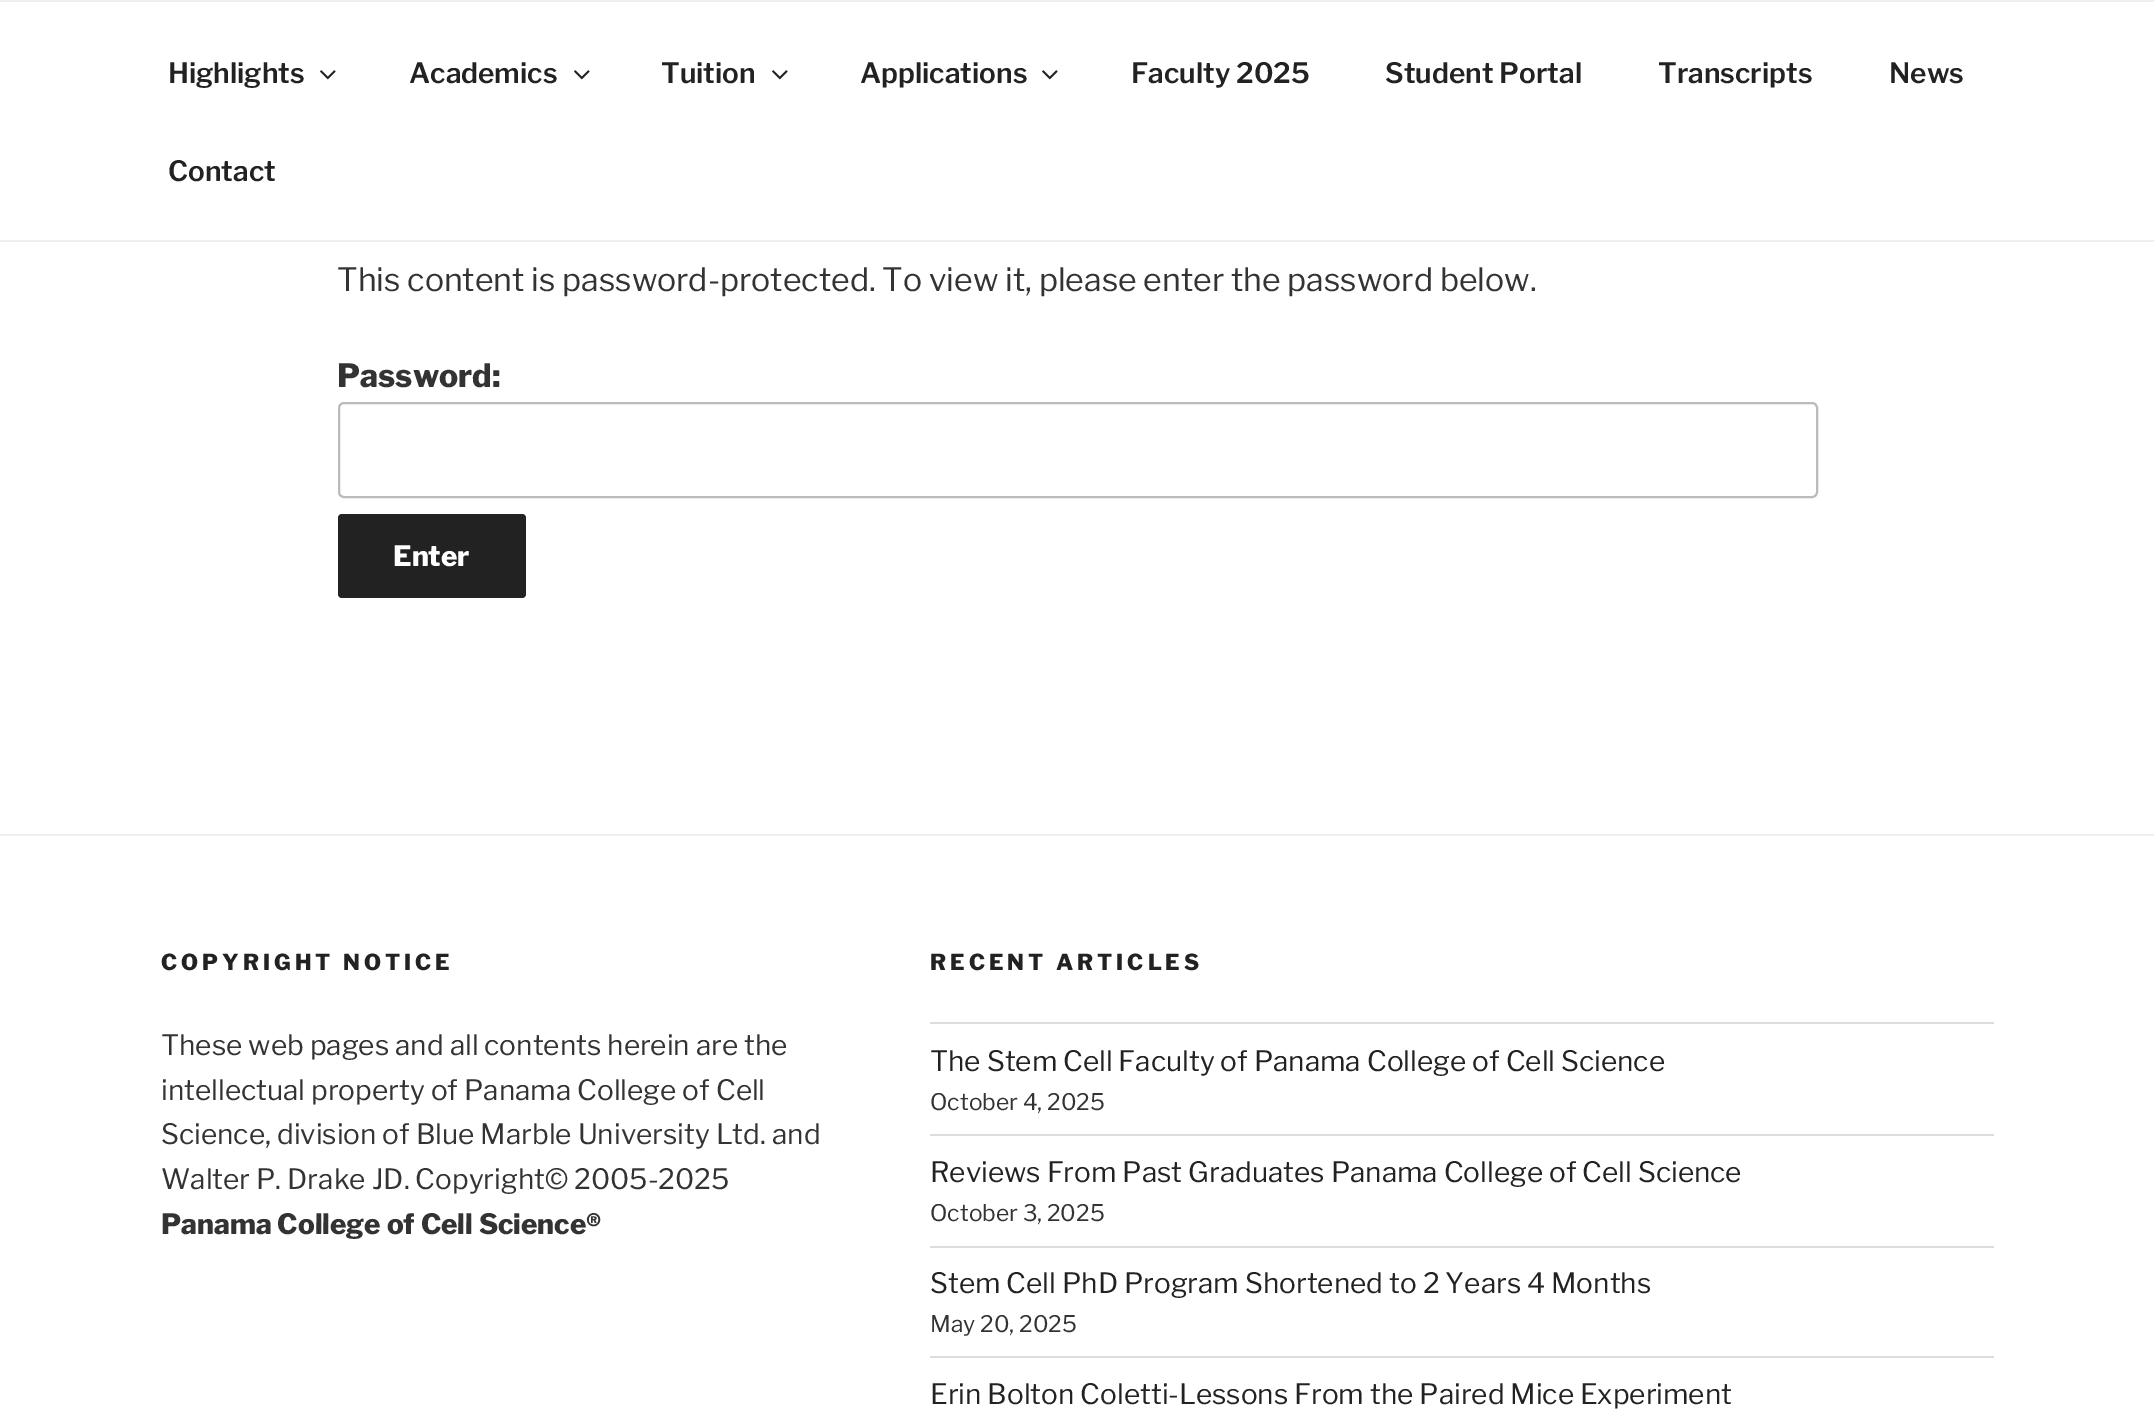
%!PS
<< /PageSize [2154 1415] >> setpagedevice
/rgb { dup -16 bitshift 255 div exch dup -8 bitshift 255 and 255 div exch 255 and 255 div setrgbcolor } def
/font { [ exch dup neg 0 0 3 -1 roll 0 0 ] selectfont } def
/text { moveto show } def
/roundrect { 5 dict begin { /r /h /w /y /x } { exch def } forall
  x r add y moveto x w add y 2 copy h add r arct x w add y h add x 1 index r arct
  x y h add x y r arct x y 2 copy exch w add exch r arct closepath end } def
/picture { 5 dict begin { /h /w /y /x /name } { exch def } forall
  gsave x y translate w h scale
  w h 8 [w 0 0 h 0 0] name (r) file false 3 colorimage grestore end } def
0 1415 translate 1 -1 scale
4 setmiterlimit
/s1 { /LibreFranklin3-Thin 28 font 16#222222 rgb } def
/s2 { /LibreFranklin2-Thin 32 font 16#333333 rgb } def
/s3 { /LibreFranklin-Thin 32 font 16#333333 rgb } def
/s4 { /LibreFranklin-Thin 28 font 16#FFFFFF rgb } def
/s5 { /LibreFranklin2-Thin 28 font 16#333333 rgb } def
/s6 { /LibreFranklin-Thin 28 font 16#333333 rgb } def
/s7 { /LibreFranklin2-Thin 28 font 16#222222 rgb } def
/s8 { /LibreFranklin2-Thin 22.75 font 16#333333 rgb } def
16#FFFFFF rgb
0 0 2154 1415 rectfill
16#EEEEEE rgb
0 0 2154 2 rectfill
0 240 2154 2 rectfill
s1
(Highlights) 168 83 text
(pic1.raw) 320 70 16 10 picture
(Academics) 409 83 text
(pic1.raw) 574 70 16 10 picture
(Tuition) 661 83 text
(pic1.raw) 772 70 16 10 picture
(Applications) 860 83 text
(pic1.raw) 1042 70 16 10 picture
(Faculty 2025) 1131 83 text
(Student Portal) 1385 83 text
(Transcripts) 1658 83 text
(News) 1889 83 text
(Contact) 168 181 text
s2
(This content is password-protected. To view it, please enter the password below.) 337 291 text
s3
(Password:) 337 387 text
16#BBBBBB rgb
2 setlinewidth
339 403 1478 94 5 roundrect stroke
16#222222 rgb
338 514 188 84 4 roundrect fill
s4
(Enter) 393 566 text
16#EEEEEE rgb
0 834 2154 2 rectfill
/LibreFranklin-Thin 22 font
16#222222 rgb
161 970 moveto 4 0 (COPYRIGHT NOTICE) ashow
s5
(These web pages and all contents herein are the) 161 1055 text
(intellectual property of Panama College of Cell) 161 1100 text
(Science, division of Blue Marble University Ltd. and) 161 1144 text
(Walter P. Drake JD. Copyright© 2005-2025) 161 1189 text
s6
(Panama College of Cell Science®) 161 1234 text
/LibreFranklin-Thin 22 font
16#222222 rgb
930 970 moveto 4 0 (RECENT ARTICLES) ashow
16#DDDDDD rgb
930 1022 1064 2 rectfill
930 1134 1064 2 rectfill
s7
(The Stem Cell Faculty of Panama College of Cell Science) 930 1071 text
s8
(October 4, 2025) 930 1110 text
16#DDDDDD rgb
930 1246 1064 2 rectfill
s7
(Reviews From Past Graduates Panama College of Cell Science) 930 1182 text
s8
(October 3, 2025) 930 1221 text
16#DDDDDD rgb
930 1356 1064 2 rectfill
s7
(Stem Cell PhD Program Shortened to 2 Years 4 Months) 930 1293 text
s8
(May 20, 2025) 930 1332 text
s7
(Erin Bolton Coletti-Lessons From the Paired Mice Experiment) 930 1404 text
showpage
